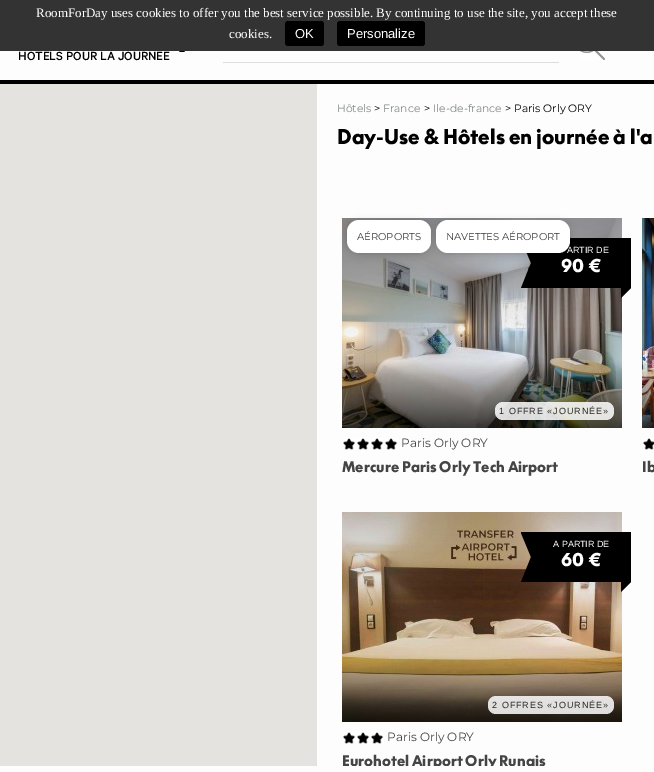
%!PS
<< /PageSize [654 772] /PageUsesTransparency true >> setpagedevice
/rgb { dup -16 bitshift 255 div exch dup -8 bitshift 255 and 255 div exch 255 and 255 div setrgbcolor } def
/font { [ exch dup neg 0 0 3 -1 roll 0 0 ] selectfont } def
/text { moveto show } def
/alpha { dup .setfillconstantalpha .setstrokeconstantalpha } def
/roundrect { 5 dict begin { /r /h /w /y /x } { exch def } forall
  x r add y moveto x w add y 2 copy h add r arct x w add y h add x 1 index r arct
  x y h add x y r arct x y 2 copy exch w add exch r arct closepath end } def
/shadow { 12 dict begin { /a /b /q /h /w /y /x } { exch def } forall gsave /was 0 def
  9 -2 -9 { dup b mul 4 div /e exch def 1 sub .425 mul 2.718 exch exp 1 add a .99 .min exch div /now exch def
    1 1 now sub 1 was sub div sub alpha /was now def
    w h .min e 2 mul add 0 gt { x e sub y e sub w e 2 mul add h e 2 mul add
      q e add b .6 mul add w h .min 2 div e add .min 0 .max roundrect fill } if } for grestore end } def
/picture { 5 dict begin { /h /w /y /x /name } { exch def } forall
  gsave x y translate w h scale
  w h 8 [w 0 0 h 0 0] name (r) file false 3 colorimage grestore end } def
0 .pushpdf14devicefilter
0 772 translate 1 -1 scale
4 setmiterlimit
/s1 { /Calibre-Medium 13.25 font 16#000000 rgb } def
/s2 { /LiberationSerif-Regular 13 font 16#FFFFFF rgb } def
/s3 { /LiberationSans-Regular 13 font 16#FFFFFF rgb } def
/s4 { /Montserrat-Regular 10.75 font 16#82888A rgb } def
/s5 { /Montserrat-Regular 10.75 font 16#000000 rgb } def
/s6 { /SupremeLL-Black 20 font 16#000000 rgb } def
/s7 { /Montserrat-Regular 10 font 16#393C3D rgb } def
/s8 { /LiberationSans-Regular 9 font 16#FFFFFF rgb } def
/s9 { /SupremeLL-Black 18 font 16#FFFFFF rgb } def
/s10 { /Montserrat-Regular 12 font 16#444444 rgb } def
/s11 { /SupremeLL-Black 14.4 font 16#444444 rgb } def
16#FDFDFD rgb
0 0 654 772 rectfill
s1
(HÔTELS POUR LA JOURNÉE) 18 60 text
16#333333 rgb
0 0 654 51 rectfill
s2
(RoomForDay uses cookies to offer you the best service possible. By continuing to use the site, you accept these) 36 17 text
(cookies.) 229 38 text
16#000000 rgb
285 21 39 25 3 roundrect fill
s3
(OK) 295 38 text
16#000000 rgb
337 21 88 25 3 roundrect fill
s3
(Personalize) 347 38 text
(pic1.raw) 179 51 6 1 picture
(pic2.raw) 580 51 25 9 picture
16#DDDDDD rgb
223 62 336 1 rectfill
16#000000 rgb
0 80 654 4 rectfill
16#E5E3DF rgb
0 84 317 682 rectfill
s4
(Hôtels) 337 112 text
s5
(>) 374 112 text
s4
(France) 383 112 text
s5
(>) 424 112 text
s4
(Ile-de-france) 433 112 text
s5
(> Paris Orly ORY) 505 112 text
s6
(Day-Use & Hôtels en journée à l'a) 337 144 text
(pic3.raw) 342 218 280 210 picture
347 221 84 33 12 3.5 0.16 shadow
16#FFFFFF rgb
347 220 84 33 12 roundrect fill
s7
(AÉROPORTS) 357 240 text
16#000000 rgb
521 238 moveto 631 238 lineto 631 288 lineto 621 298 lineto 621 288 lineto 521 288 lineto 531 263 lineto 521 239 lineto closepath fill
436 221 134 33 12 3.5 0.16 shadow
16#FFFFFF rgb
436 220 134 33 12 roundrect fill
s7
(NAVETTES AÉROPORT) 446 240 text
0.33 alpha
16#000000 rgb
631 288 moveto 621 288 lineto 621 298 lineto closepath fill
1 alpha
s8
(ARTIR DE) 567 253 text
s9
(90 €) 561 272 text
0.85 alpha
495 402 119 18 8 roundrect fill
/LiberationSans-Regular 9 font
1 alpha
16#222222 rgb
499 414 moveto 1 0 (1 OFFRE «JOURNÉE») ashow
(pic4.raw) 343 438 13 12 picture
(pic4.raw) 357 438 13 12 picture
(pic4.raw) 371 438 13 12 picture
(pic4.raw) 385 438 13 12 picture
s10
(Paris Orly ORY) 401 447 text
s11
(Mercure Paris Orly Tech Airport) 342 472 text
(pic5.raw) 642 218 12 210 picture
(pic6.raw) 643 438 11 12 picture
(Ib) 642 472 text
(pic7.raw) 342 512 280 210 picture
16#000000 rgb
521 532 moveto 631 532 lineto 631 582 lineto 621 592 lineto 621 582 lineto 521 582 lineto 531 557 lineto 521 533 lineto closepath fill
0.33 alpha
631 582 moveto 621 582 lineto 621 592 lineto closepath fill
1 alpha
s8
(A PARTIR DE) 553 547 text
s9
(60 €) 561 566 text
0.85 alpha
488 696 126 18 8 roundrect fill
/LiberationSans-Regular 9 font
1 alpha
16#222222 rgb
492 708 moveto 1 0 (2 OFFRES «JOURNÉE») ashow
(pic4.raw) 343 732 13 12 picture
(pic4.raw) 357 732 13 12 picture
(pic4.raw) 371 732 13 12 picture
s10
(Paris Orly ORY) 387 741 text
gsave
342 752 280 14 rectclip
s11
(Eurohotel Airport Orly Rungis) 342 766 text
grestore
.poppdf14devicefilter showpage
